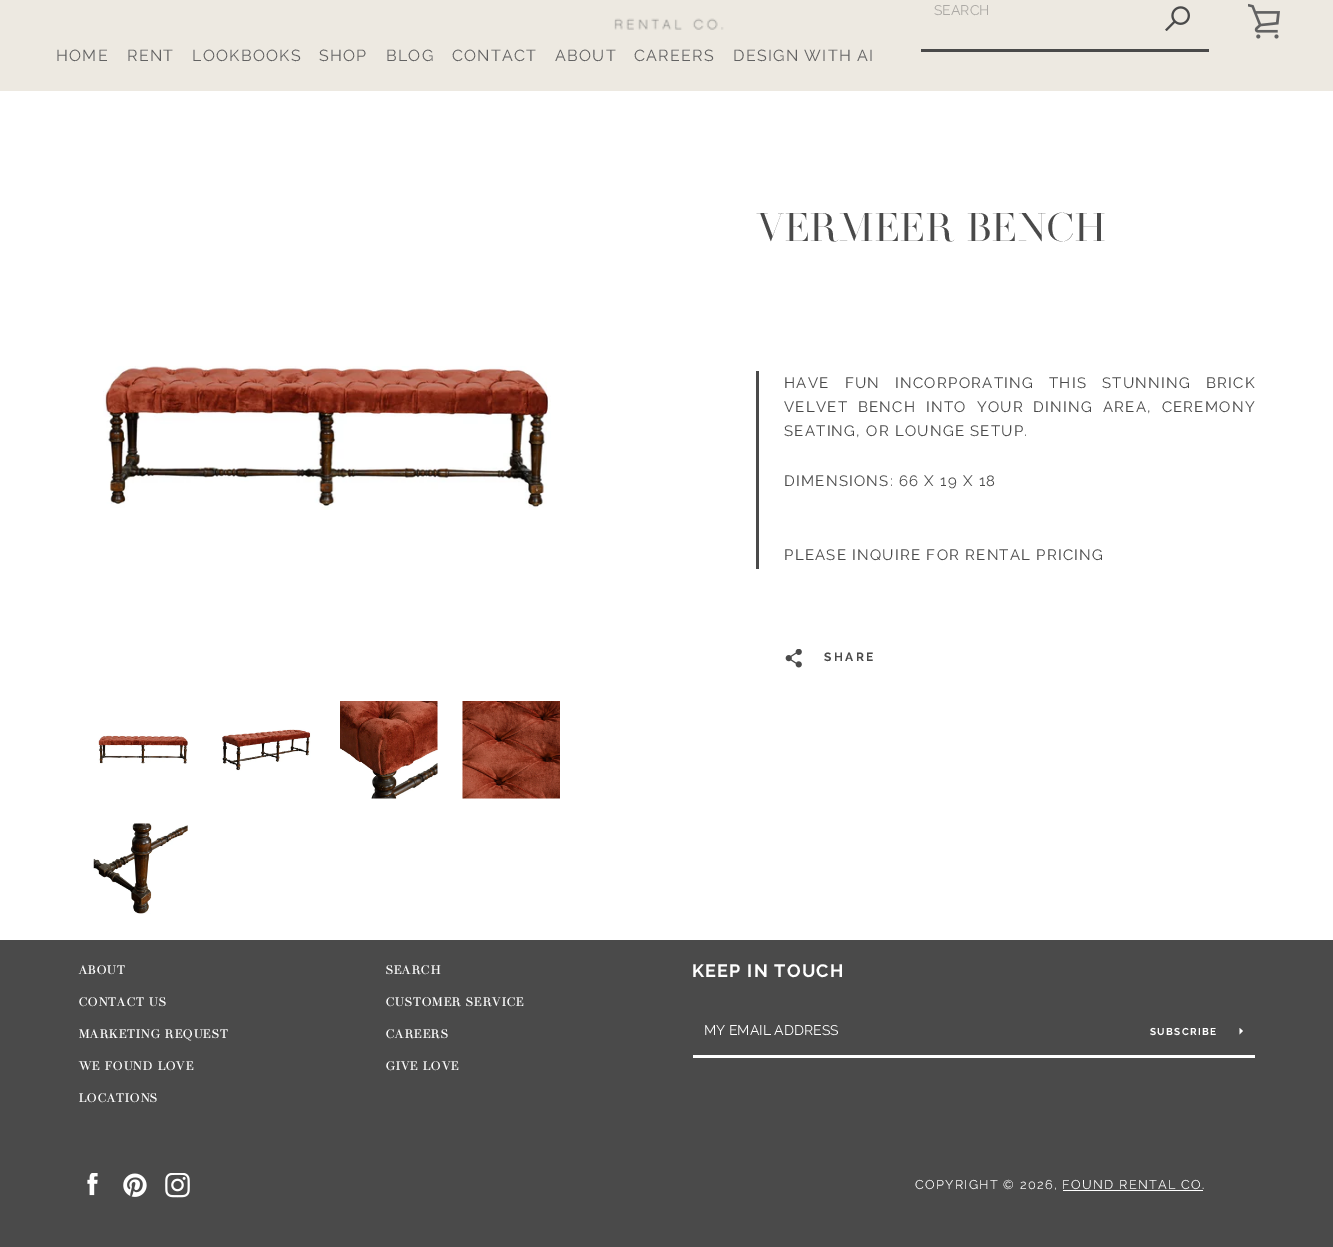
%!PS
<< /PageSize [1333 1247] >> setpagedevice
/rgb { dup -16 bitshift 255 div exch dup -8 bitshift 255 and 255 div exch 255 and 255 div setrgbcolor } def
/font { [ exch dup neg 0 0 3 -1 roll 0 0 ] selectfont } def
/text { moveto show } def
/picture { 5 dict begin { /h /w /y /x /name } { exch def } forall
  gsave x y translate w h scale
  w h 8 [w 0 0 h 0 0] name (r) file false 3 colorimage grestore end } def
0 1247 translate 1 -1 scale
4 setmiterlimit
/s1 { /Raleway-Regular 14 font 16#ACA9A5 rgb } def
/s2 { /Raleway-Regular 14 font 16#FFFFFF rgb } def
16#4A4A4A rgb
0 0 1333 1247 rectfill
16#EDE9E1 rgb
0 0 1333 91 rectfill
16#4A4A4A rgb
921 49 288 3 rectfill
s1
(SEARCH) 934 15 text
(pic1.raw) 1165 6 25 25 picture
(pic2.raw) 1248 3 32 36 picture
(pic3.raw) 614 18 110 12 picture
/Raleway-Regular 16 font
16#626262 rgb
56 61 moveto 1.25 0 (HOME) ashow
127 61 moveto 1.25 0 (RENT) ashow
192 61 moveto 1.25 0 (LOOKBOOKS) ashow
319 61 moveto 1.25 0 (SHOP) ashow
386 61 moveto 1.25 0 (BLOG) ashow
452 61 moveto 1.25 0 (CONTACT) ashow
555 61 moveto 1.25 0 (ABOUT) ashow
634 61 moveto 1.25 0 (CAREERS) ashow
733 61 moveto 1.25 0 (DESIGN WITH AI) ashow
16#FFFFFF rgb
0 91 1333 849 rectfill
(pic4.raw) 103 366 448 144 picture
(pic5.raw) 98 735 90 29 picture
(pic6.raw) 222 729 89 42 picture
(pic7.raw) 340 701 98 98 picture
(pic8.raw) 462 701 98 98 picture
(pic9.raw) 93 823 95 91 picture
/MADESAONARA-Regular 40 font
16#4A4A4A rgb
757 241 moveto 1.25 0 (VERMEER BENCH) ashow
756 371 3 198 rectfill
/Raleway-Regular 15 font
784 388 moveto 10 0 32 1.25 0 (HAVE FUN INCORPORATING THIS STUNNING BRICK) awidthshow
784 412 moveto 4.75 0 32 1.25 0 (VELVET BENCH INTO YOUR DINING AREA, CEREMONY) awidthshow
784 436 moveto 1.25 0 (SEATING, OR LOUNGE SETUP.) ashow
784 486 moveto 1.25 0 (DIMENSIONS: 66 X 19 X 18) ashow
784 560 moveto 1.25 0 (PLEASE INQUIRE FOR RENTAL PRICING) ashow
(pic10.raw) 785 649 17 19 picture
/Raleway-Bold 12 font
824 661 moveto 2.5 0 (SHARE) ashow
/MADESAONARA-Bold 12 font
16#FFFFFF rgb
79 974 moveto 1.25 0 (ABOUT) ashow
79 1006 moveto 1.25 0 (CONTACT US) ashow
79 1038 moveto 1.25 0 (MARKETING REQUEST) ashow
79 1070 moveto 1.25 0 (WE FOUND LOVE) ashow
79 1102 moveto 1.25 0 (LOCATIONS) ashow
386 974 moveto 1.25 0 (SEARCH) ashow
386 1006 moveto 1.25 0 (CUSTOMER SERVICE) ashow
386 1038 moveto 1.25 0 (CAREERS) ashow
386 1070 moveto 1.25 0 (GIVE LOVE) ashow
/Raleway-Bold 18 font
692 977 moveto 1.25 0 (KEEP IN TOUCH) ashow
693 1055 562 3 rectfill
s2
(MY EMAIL ADDRESS) 704 1035 text
/Raleway-Bold 10 font
1150 1035 moveto 1.25 0 (SUBSCRIBE) ashow
1243 1031 moveto 1239.5 1034.5 lineto 1239.5 1028 lineto closepath fill
(pic11.raw) 87 1173 11 23 picture
(pic12.raw) 123 1173 24 24 picture
(pic13.raw) 165 1173 25 25 picture
/Raleway-Regular 12.8 font
915 1189 moveto 1.25 0 (COPYRIGHT © 2026, FOUND RENTAL CO.) ashow
1063 1190 140 1 rectfill
showpage
